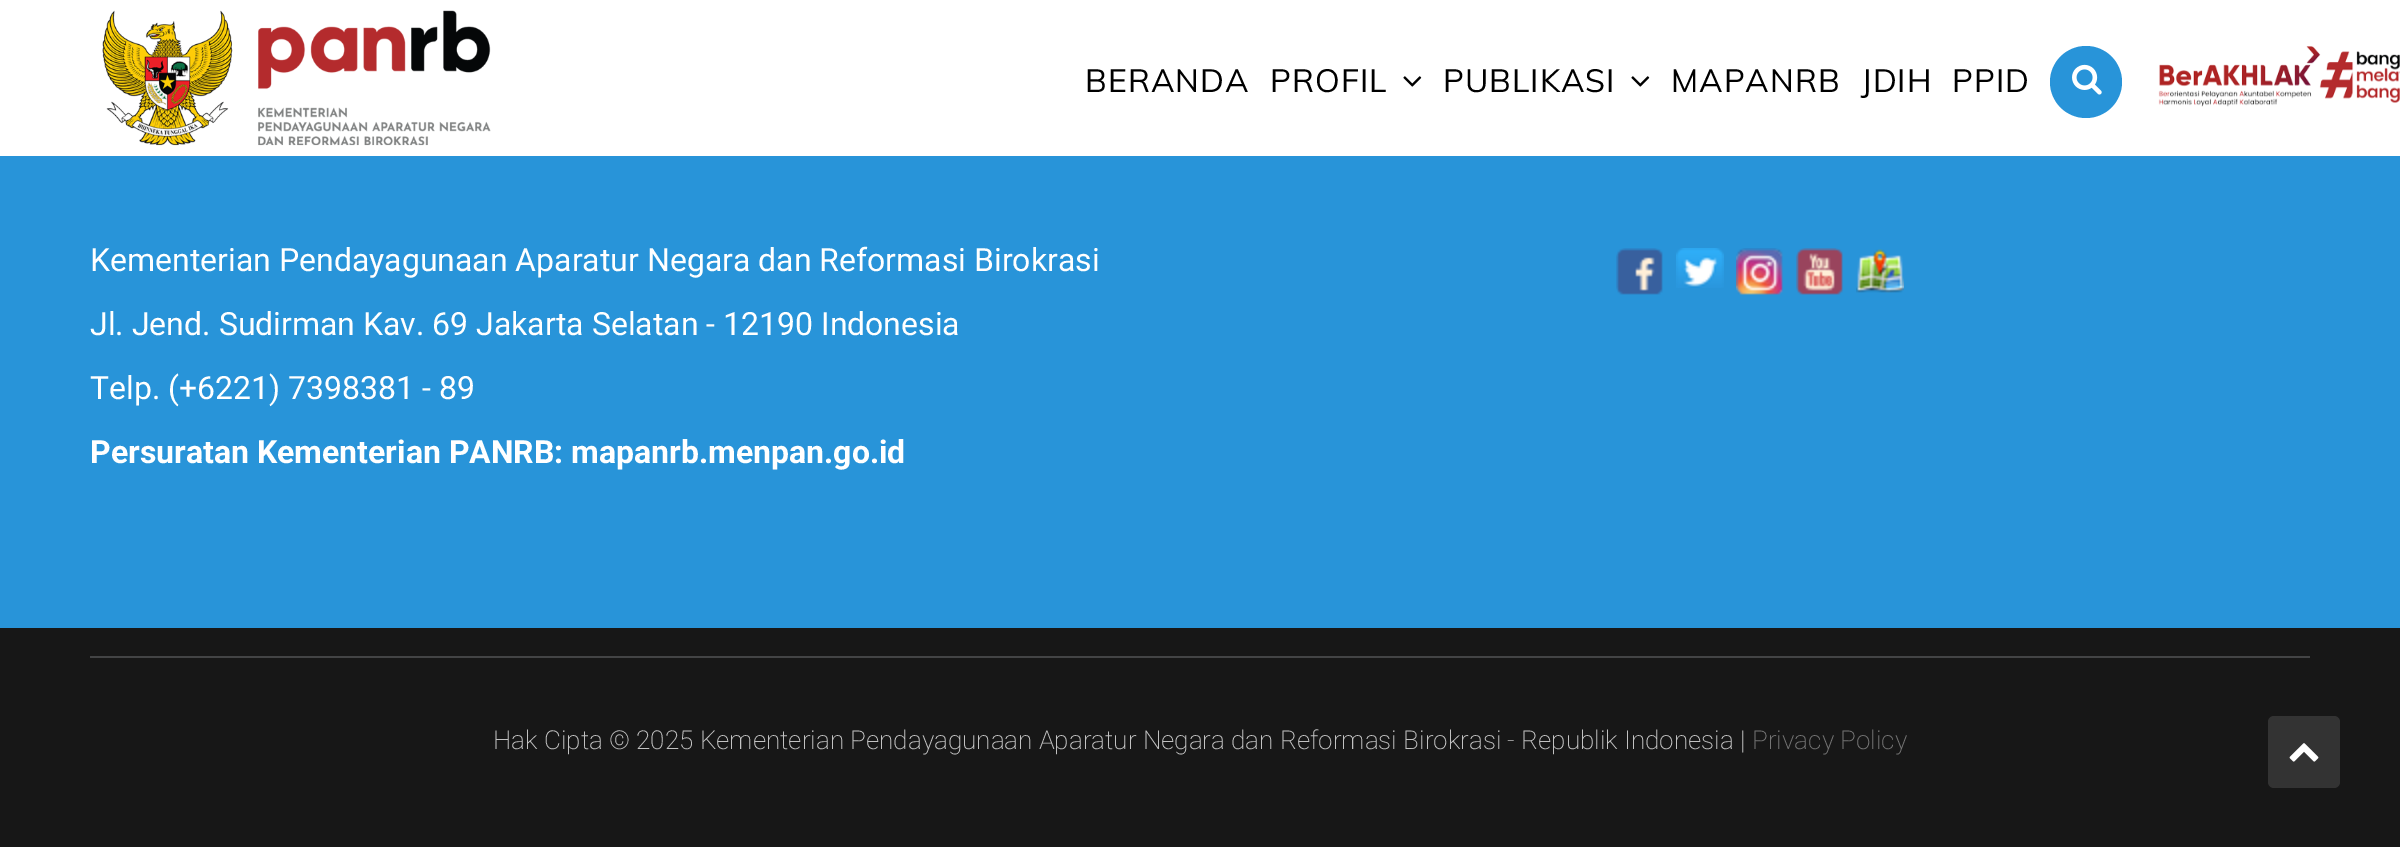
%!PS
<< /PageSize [2400 847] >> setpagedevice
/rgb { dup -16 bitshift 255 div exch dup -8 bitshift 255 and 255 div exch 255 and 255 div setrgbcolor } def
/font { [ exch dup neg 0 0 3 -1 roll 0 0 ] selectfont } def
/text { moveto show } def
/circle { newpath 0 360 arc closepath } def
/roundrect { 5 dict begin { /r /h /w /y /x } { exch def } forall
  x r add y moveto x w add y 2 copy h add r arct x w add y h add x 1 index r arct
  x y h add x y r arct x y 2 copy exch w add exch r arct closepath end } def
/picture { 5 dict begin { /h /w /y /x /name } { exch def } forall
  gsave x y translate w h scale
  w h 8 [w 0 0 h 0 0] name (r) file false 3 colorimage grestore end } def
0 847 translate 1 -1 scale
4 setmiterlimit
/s1 { /Roboto-Regular 32 font 16#FFFFFF rgb } def
/s2 { /Roboto-Bold 32 font 16#FFFFFF rgb } def
/s3 { /Roboto-ExtraLight 26 font 16#C2C2C2 rgb } def
/s4 { /Roboto-ExtraLight 26 font 16#747474 rgb } def
16#171717 rgb
0 0 2400 847 rectfill
16#FFFFFF rgb
0 0 2400 156 rectfill
(pic1.raw) 102 10 389 136 picture
/Muli-Regular 32 font
16#000000 rgb
1085 92 moveto 1 0 (BERANDA) ashow
1270 92 moveto 1 0 (PROFIL) ashow
(pic2.raw) 1403 76 19 11 picture
1443 92 moveto 1 0 (PUBLIKASI) ashow
(pic2.raw) 1631 76 19 11 picture
1671 92 moveto 1 0 (MAPANRB) ashow
1861 92 moveto 1 0 (JDIH) ashow
1952 92 moveto 1 0 (PPID) ashow
16#2894D9 rgb
2086 82 36 circle fill
(pic3.raw) 2072 64 30 31 picture
(pic4.raw) 2158 46 242 61 picture
0 156 2400 472 rectfill
s1
(Kementerian Pendayagunaan Aparatur Negara dan Reformasi Birokrasi) 90 271 text
(Jl. Jend. Sudirman Kav. 69 Jakarta Selatan - 12190 Indonesia) 90 335 text
(Telp. \(+6221\) 7398381 - 89) 90 399 text
s2
(Persuratan Kementerian PANRB: mapanrb.menpan.go.id) 90 463 text
(pic5.raw) 1616 248 47 47 picture
(pic6.raw) 1676 248 48 40 picture
(pic7.raw) 1736 248 47 47 picture
(pic8.raw) 1796 248 47 47 picture
(pic9.raw) 1856 249 48 44 picture
16#434445 rgb
90 656 2220 2 rectfill
s3
(Hak Cipta © 2025 Kementerian Pendayagunaan Aparatur Negara dan Reformasi Birokrasi - Republik Indonesia |) 493 749 text
s4
(Privacy Policy) 1752 749 text
16#333333 rgb
2268 716 72 72 6 roundrect fill
(pic10.raw) 2289 743 30 19 picture
showpage
